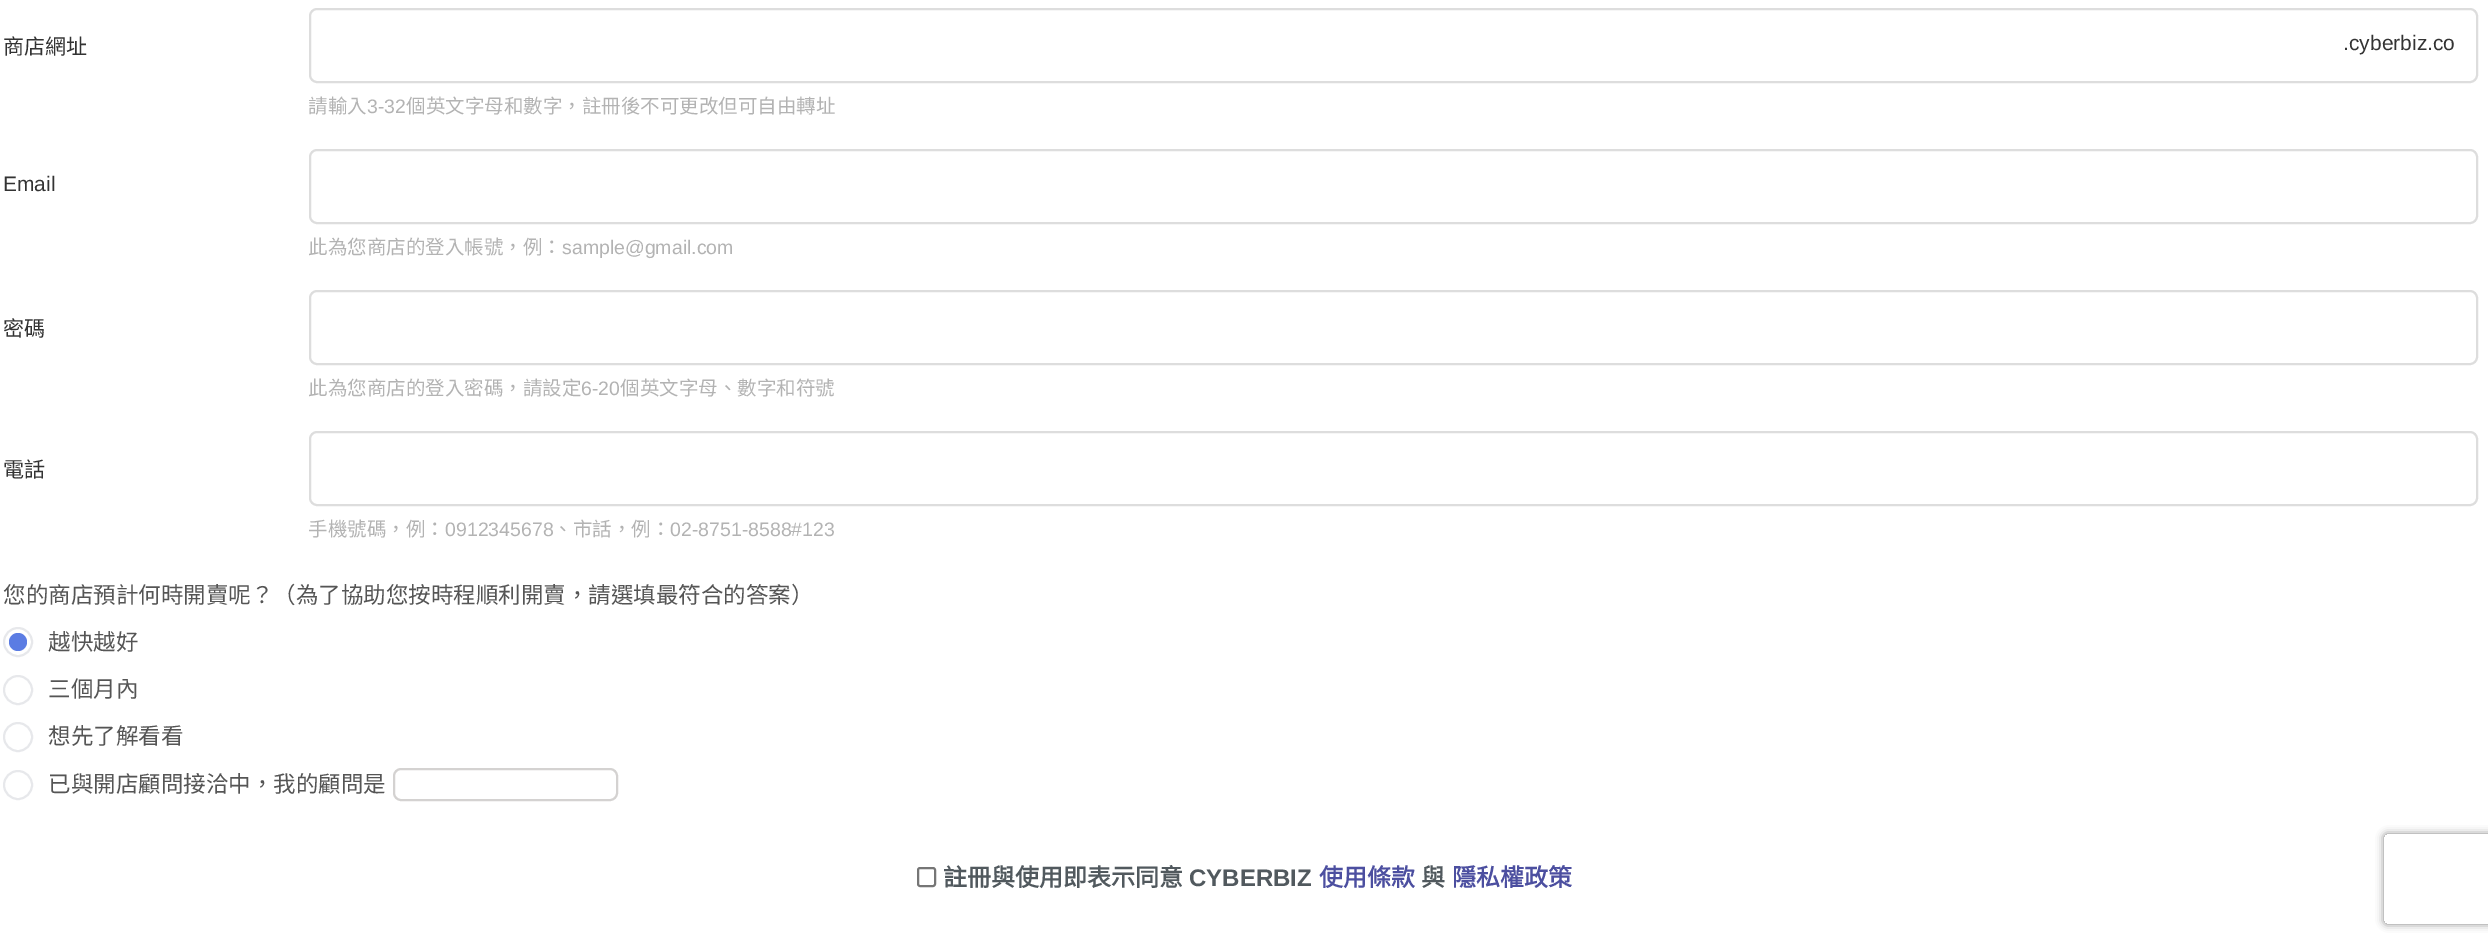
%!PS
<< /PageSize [2488 945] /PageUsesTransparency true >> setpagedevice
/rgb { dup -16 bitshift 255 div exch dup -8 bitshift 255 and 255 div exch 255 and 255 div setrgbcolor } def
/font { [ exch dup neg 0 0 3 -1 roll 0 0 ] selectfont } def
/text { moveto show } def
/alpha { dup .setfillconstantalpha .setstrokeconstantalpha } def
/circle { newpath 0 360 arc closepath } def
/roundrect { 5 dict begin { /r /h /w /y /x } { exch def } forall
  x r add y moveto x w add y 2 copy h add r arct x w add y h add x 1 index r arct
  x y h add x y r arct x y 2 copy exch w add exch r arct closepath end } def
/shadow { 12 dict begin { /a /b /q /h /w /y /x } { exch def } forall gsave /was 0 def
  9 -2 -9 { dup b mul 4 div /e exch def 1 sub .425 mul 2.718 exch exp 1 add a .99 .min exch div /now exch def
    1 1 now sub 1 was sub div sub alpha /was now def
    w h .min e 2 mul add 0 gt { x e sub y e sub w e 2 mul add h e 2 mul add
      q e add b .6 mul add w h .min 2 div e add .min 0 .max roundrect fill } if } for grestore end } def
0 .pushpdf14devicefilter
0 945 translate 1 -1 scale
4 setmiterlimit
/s1 { /NotoSansCJKTC-Regular 21 font 16#333333 rgb } def
/s2 { /LiberationSans-Regular 21 font 16#333333 rgb } def
/s3 { /NotoSansCJKTC-Regular 19.5 font 16#B3B3B3 rgb } def
/s4 { /LiberationSans-Regular 19.5 font 16#B3B3B3 rgb } def
/s5 { /NotoSansCJKTC-Regular 22.5 font 16#555555 rgb } def
/s6 { /NotoSansCJKTC-Bold 24 font 16#51595E rgb } def
/s7 { /LiberationSans-Bold 24 font 16#51595E rgb } def
/s8 { /NotoSansCJKTC-Bold 24 font 16#4C4FA0 rgb } def
16#FFFFFF rgb
0 0 2488 945 rectfill
s1
(商店網址) 3 54 text
16#DDDDDD rgb
2 setlinewidth
310 9 2167 73 7 roundrect stroke
s2
(.cyberbiz.co) 2343 50 text
s3
(請輸入) 308 113 text
s4
(3-32) 367 113 text
s3
(個英文字母和數字，註冊後不可更改但可自由轉址) 406 113 text
s2
(Email) 3 191 text
16#DDDDDD rgb
310 150 2167 73 7 roundrect stroke
s3
(此為您商店的登入帳號，例：) 308 254 text
s4
(sample@gmail.com) 562 254 text
s1
(密碼) 3 336 text
16#DDDDDD rgb
310 291 2167 73 7 roundrect stroke
s3
(此為您商店的登入密碼，請設定) 308 395 text
s4
(6-20) 581 395 text
s3
(個英文字母、數字和符號) 620 395 text
s1
(電話) 3 477 text
16#DDDDDD rgb
310 432 2167 73 7 roundrect stroke
s3
(手機號碼，例：) 308 536 text
s4
(0912345678) 445 536 text
s3
(、市話，例：) 553 536 text
s4
(02-8751-8588#123) 670 536 text
s5
(您的商店預計何時開賣呢？（為了協助您按時程順利開賣，請選填最符合的答案）) 3 603 text
16#E7E8EB rgb
18 642 14 circle stroke
16#5B7CE3 rgb
18 642 9 circle fill
s5
(越快越好) 48 650 text
16#E7E8EB rgb
18 690 14 circle stroke
s5
(三個月內) 48 697 text
16#E7E8EB rgb
18 737 14 circle stroke
s5
(想先了解看看) 48 744 text
16#E7E8EB rgb
18 785 14 circle stroke
s5
(已與開店顧問接洽中，我的顧問是) 48 792 text
16#D4D2D1 rgb
394 769 223 31 7 roundrect stroke
16#767676 rgb
918 868 17 18 2 roundrect stroke
s6
(註冊與使用即表示同意) 943 886 text
s7
(CYBERBIZ) 1189 886 text
s8
(使用條款) 1319 886 text
s6
(與) 1421 886 text
s8
(隱私權政策) 1452 886 text
gsave
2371 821 moveto 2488 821 lineto 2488 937 lineto 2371 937 lineto closepath 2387 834 moveto 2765 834 lineto 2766.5 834 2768 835.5 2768 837 curveto 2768 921 lineto 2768 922.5 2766.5 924 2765 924 curveto 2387 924 lineto 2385.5 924 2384 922.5 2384 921 curveto 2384 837 lineto 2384 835.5 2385.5 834 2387 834 curveto closepath eoclip newpath
16#808080 rgb
2384 834 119 90 3 4 1 shadow
grestore
.poppdf14devicefilter showpage
